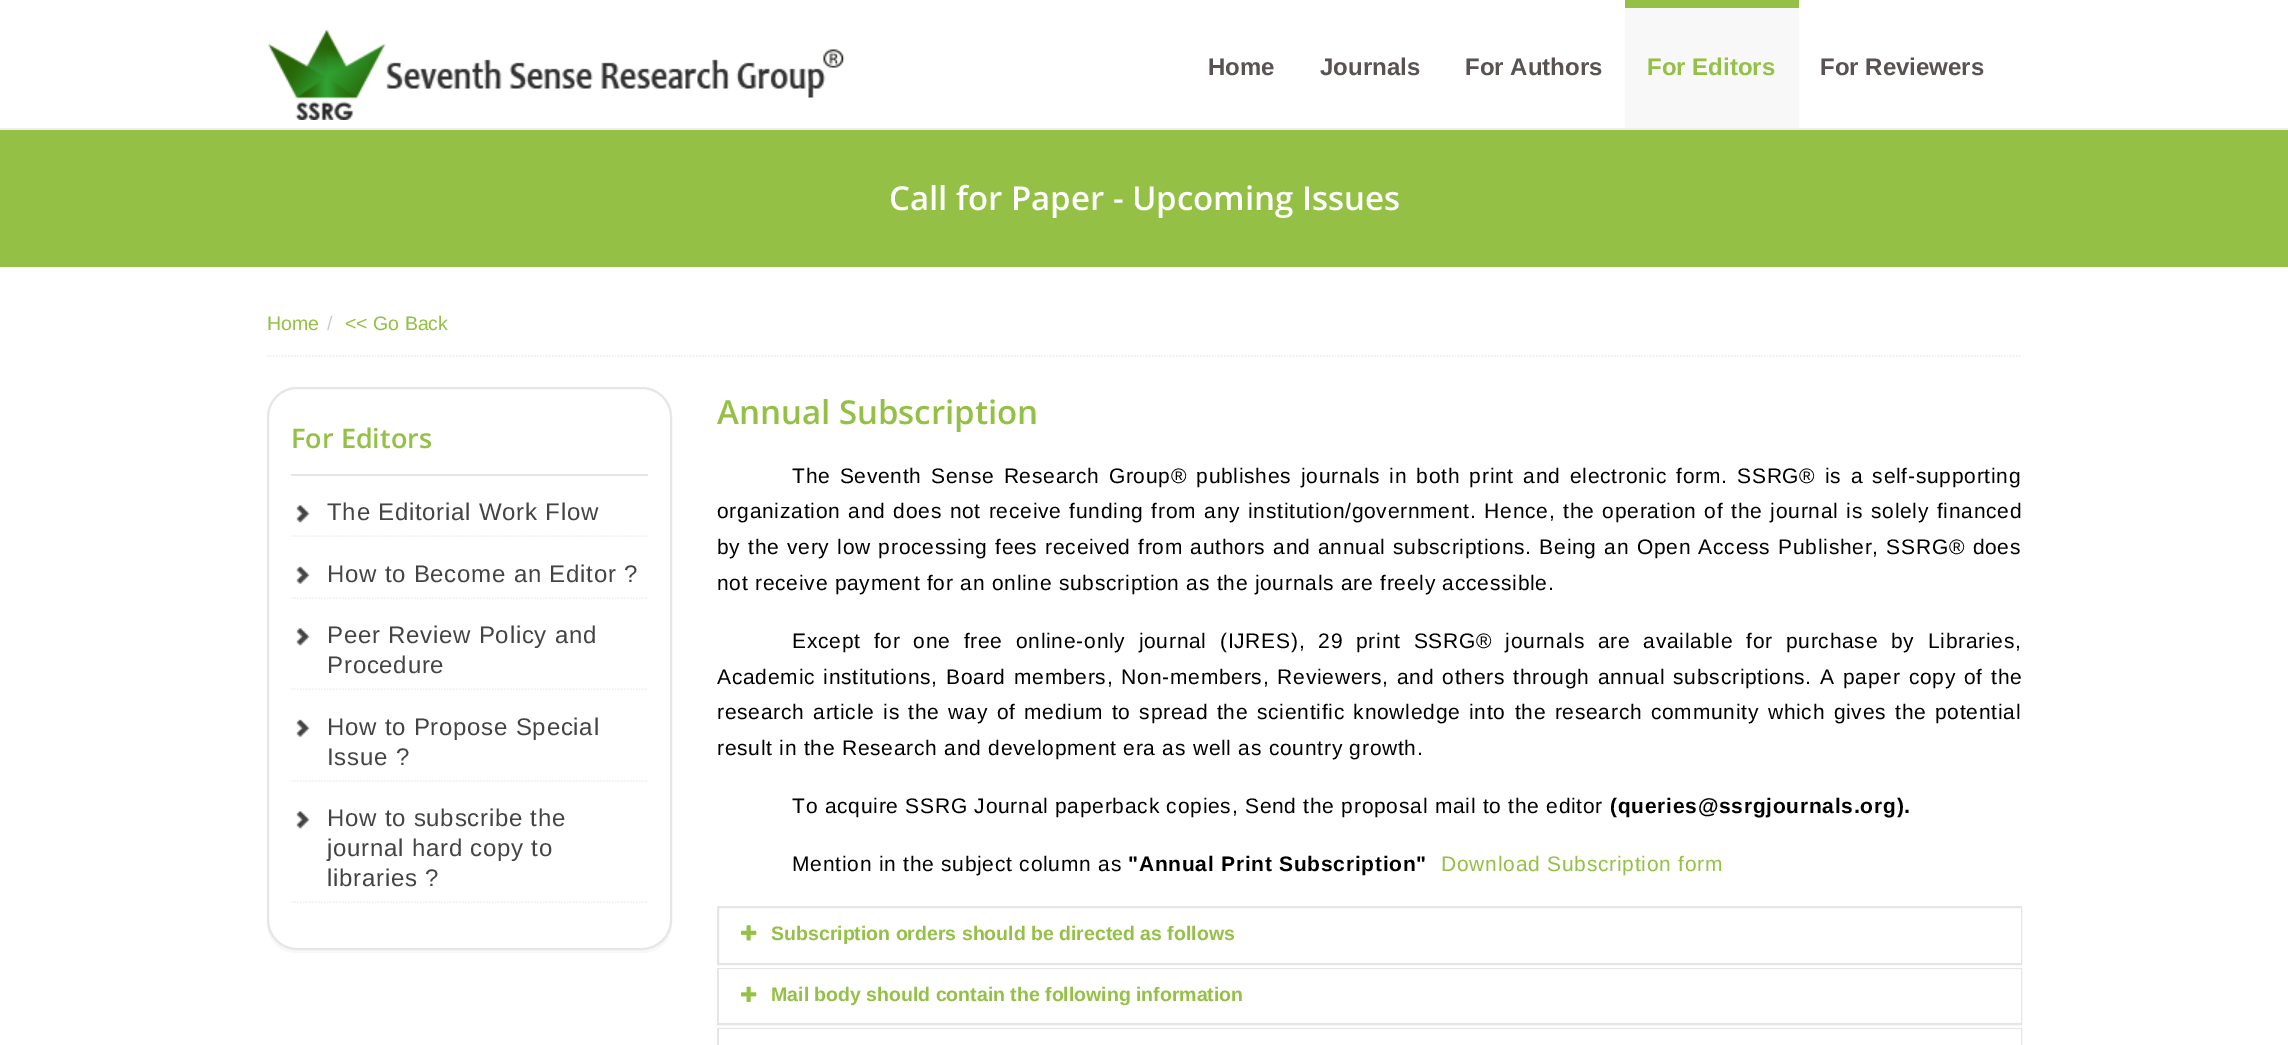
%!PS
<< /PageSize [2288 1045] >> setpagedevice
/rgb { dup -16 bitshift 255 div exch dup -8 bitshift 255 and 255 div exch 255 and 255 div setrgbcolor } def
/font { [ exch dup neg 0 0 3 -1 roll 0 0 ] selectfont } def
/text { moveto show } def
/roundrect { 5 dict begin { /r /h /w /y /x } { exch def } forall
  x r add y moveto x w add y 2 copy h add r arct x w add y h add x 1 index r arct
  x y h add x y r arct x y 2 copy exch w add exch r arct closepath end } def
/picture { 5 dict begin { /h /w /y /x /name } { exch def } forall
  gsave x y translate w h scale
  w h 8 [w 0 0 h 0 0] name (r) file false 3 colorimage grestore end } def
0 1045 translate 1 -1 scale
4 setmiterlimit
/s1 { /LiberationSans-Bold 24 font 16#585252 rgb } def
/s2 { /LiberationSans-Bold 24 font 16#94C045 rgb } def
/s3 { /OpenSans-SemiBold 33 font 16#FFFFFF rgb } def
/s4 { /LiberationSans-Regular 19.5 font 16#94C045 rgb } def
/s5 { /LiberationSans-Regular 19.5 font 16#CCCCCC rgb } def
/s6 { /OpenSans-SemiBold 27 font 16#94C045 rgb } def
/s7 { /OpenSans-SemiBold 33 font 16#94C045 rgb } def
/s8 { /LiberationSans-Bold 19.5 font 16#94C045 rgb } def
16#FFFFFF rgb
0 0 2288 1045 rectfill
16#EEEEEE rgb
0 128 2288 2 rectfill
(pic1.raw) 268 30 577 90 picture
s1
(Home) 1208 75 text
(Journals) 1320 75 text
(For Authors) 1465 75 text
16#94C045 rgb
1625 0 174 8 rectfill
16#F8F8F8 rgb
1625 8 174 120 rectfill
s2
(For Editors) 1647 75 text
s1
(For Reviewers) 1820 75 text
16#94C045 rgb
0 130 2288 137 rectfill
s3
(Call for Paper - Upcoming Issues) 889 210 text
16#EEEEEE rgb
1.5 setlinewidth
[1.5 1.5] 0 setdash
267 356 moveto 2022 356 lineto stroke
s4
(Home) 267 330 text
s5
(/) 327 330 text
s4
(<< Go Back) 345 330 text
16#F7F7F7 rgb
267 920 moveto 267 923 lineto 267 940 280 953 297 953 curveto 642 953 lineto 659 953 672 940 672 923 curveto 672 920 lineto 672 936 659 950 642 950 curveto 297 950 lineto 280 950 267 936 267 920 curveto closepath fill
16#E6E6E6 rgb
2 setlinewidth
[] 0 setdash
268 388 403 561 29 roundrect stroke
16#E5E5E5 rgb
291 474 357 2 rectfill
s6
(For Editors) 291 448 text
(pic2.raw) 296 505 14 19 picture
16#EFEFEF rgb
1.5 setlinewidth
[1.5 1.5] 0 setdash
291 536 moveto 648 536 lineto stroke
/LiberationSans-Regular 24 font
16#444444 rgb
327 520 moveto 0.75 0 (The Editorial Work Flow) ashow
(pic3.raw) 296 566 14 19 picture
16#EFEFEF rgb
291 598 moveto 648 598 lineto stroke
16#444444 rgb
327 582 moveto 0.75 0 (How to Become an Editor ?) ashow
(pic2.raw) 296 628 14 19 picture
16#EFEFEF rgb
291 689 moveto 648 689 lineto stroke
16#444444 rgb
327 643 moveto 0.75 0 (Peer Review Policy and) ashow
327 673 moveto 0.75 0 (Procedure) ashow
(pic3.raw) 296 719 14 19 picture
16#EFEFEF rgb
291 781 moveto 648 781 lineto stroke
16#444444 rgb
327 735 moveto 0.75 0 (How to Propose Special) ashow
327 765 moveto 0.75 0 (Issue ?) ashow
(pic2.raw) 296 811 14 19 picture
16#EFEFEF rgb
291 902 moveto 648 902 lineto stroke
16#444444 rgb
327 826 moveto 0.75 0 (How to subscribe the) ashow
327 856 moveto 0.75 0 (journal hard copy to) ashow
327 886 moveto 0.75 0 (libraries ?) ashow
s7
(Annual Subscription) 717 424 text
/LiberationSans-Regular 21 font
16#000000 rgb
792 483 moveto 2.6 0 32 0.75 0 (The Seventh Sense Research Group® publishes journals in both print and electronic form. SSRG® is a self-supporting) awidthshow
717 518 moveto 1.2 0 32 0.75 0 (organization and does not receive funding from any institution/government. Hence, the operation of the journal is solely financed) awidthshow
717 554 moveto 0.9 0 32 0.75 0 (by the very low processing fees received from authors and annual subscriptions. Being an Open Access Publisher, SSRG® does) awidthshow
717 590 moveto 0.75 0 (not receive payment for an online subscription as the journals are freely accessible.) ashow
792 648 moveto 6.4 0 32 0.75 0 (Except for one free online-only journal \(IJRES\), 29 print SSRG® journals are available for purchase by Libraries,) awidthshow
717 684 moveto 1.5 0 32 0.75 0 (Academic institutions, Board members, Non-members, Reviewers, and others through annual subscriptions. A paper copy of the) awidthshow
717 719 moveto 2 0 32 0.75 0 (research article is the way of medium to spread the scientific knowledge into the research community which gives the potential) awidthshow
717 755 moveto 0.75 0 (result in the Research and development era as well as country growth.) ashow
792 813 moveto 0.75 0 (To acquire SSRG Journal paperback copies, Send the proposal mail to the editor) ashow
/LiberationSans-Bold 21 font
1610 813 moveto 0.75 0 (\(queries@ssrgjournals.org\).) ashow
/LiberationSans-Regular 21 font
792 871 moveto 0.75 0 (Mention in the subject column as) ashow
/LiberationSans-Bold 21 font
1128 871 moveto 0.75 0 ("Annual Print Subscription") ashow
/LiberationSans-Regular 21 font
16#94C045 rgb
1441 871 moveto 0.75 0 (Download Subscription form) ashow
16#E5E5E5 rgb
2 setlinewidth
[] 0 setdash
718 907 1303 57 rectstroke
16#FFFFFF rgb
2020 908 1 55 rectfill
(pic4.raw) 741 925 16 16 picture
s8
(Subscription orders should be directed as follows) 771 940 text
16#E5E5E5 rgb
718 969 1303 55 rectstroke
16#FFFFFF rgb
719 969 1302 54 rectfill
(pic5.raw) 741 986 16 16 picture
s8
(Mail body should contain the following information) 771 1001 text
16#E5E5E5 rgb
718 1029 1303 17 rectstroke
16#FFFFFF rgb
719 1029 1302 16 rectfill
showpage
